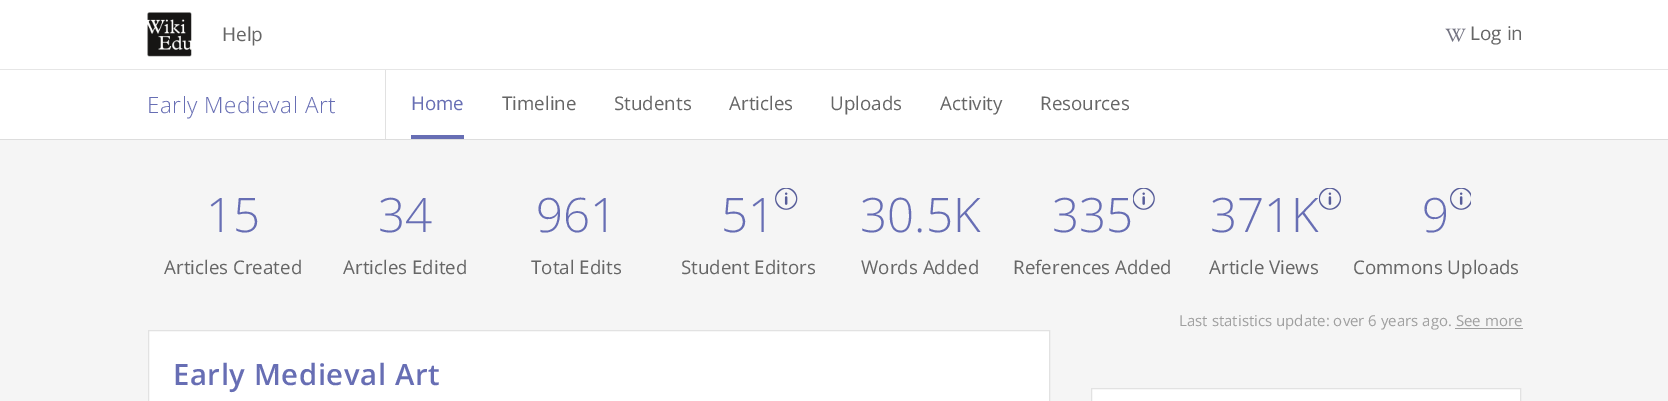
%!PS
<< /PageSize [1668 401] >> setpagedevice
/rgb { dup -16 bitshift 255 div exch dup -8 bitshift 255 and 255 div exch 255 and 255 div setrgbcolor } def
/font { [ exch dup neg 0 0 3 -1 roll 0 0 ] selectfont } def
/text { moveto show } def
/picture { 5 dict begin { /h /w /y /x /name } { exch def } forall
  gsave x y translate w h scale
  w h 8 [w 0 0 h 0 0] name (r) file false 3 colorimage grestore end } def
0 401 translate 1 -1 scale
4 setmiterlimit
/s1 { /OpenSans-Regular 19 font 16#666666 rgb } def
/s2 { /OpenSans-Regular 18.75 font 16#676EB4 rgb } def
/s3 { /OpenSans-Regular 18.75 font 16#666666 rgb } def
/s4 { /OpenSans-Light 47.5 font 16#676EB4 rgb } def
/s5 { /OpenSans-Regular 15 font 16#9F9F9F rgb } def
16#F5F5F5 rgb
0 0 1668 401 rectfill
16#FFFFFF rgb
0 0 1668 69 rectfill
16#E6E6E6 rgb
0 69 1668 1 rectfill
(pic1.raw) 147 12 45 45 picture
s1
(Help) 222 41 text
(pic2.raw) 1445 28 21 14 picture
(Log in) 1470 40 text
16#DDDDDD rgb
0 139 moveto 0 140 lineto 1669 140 lineto 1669 71 lineto 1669 139 lineto closepath fill
16#FFFFFF rgb
0 70 1668 69 rectfill
16#E1E1E1 rgb
385 70 1 69 rectfill
/OpenSans-Light 22.5 font
16#676EB4 rgb
147 113 moveto 0.5 0 (Early Medieval Art) ashow
411 135 53 4 rectfill
s2
(Home) 411 110 text
s3
(Timeline) 502 110 text
(Students) 614 110 text
(Articles) 729 110 text
(Uploads) 830 110 text
(Activity) 940 110 text
(Resources) 1040 110 text
s4
(15) 206 232 text
s3
(Articles Created) 164 274 text
s4
(34) 378 232 text
s3
(Articles Edited) 343 274 text
s4
(961) 536 232 text
s3
(Total Edits) 531 274 text
s4
(51) 721 232 text
(pic3.raw) 775 188 23 22 picture
s3
(Student Editors) 681 274 text
s4
(30.5K) 860 232 text
s3
(Words Added) 861 274 text
s4
(335) 1052 232 text
(pic4.raw) 1133 188 22 22 picture
s3
(References Added) 1013 274 text
s4
(371K) 1210 232 text
(pic5.raw) 1319 188 22 22 picture
s3
(Article Views) 1209 274 text
s4
(9) 1422 232 text
(pic6.raw) 1450 188 21 22 picture
s3
(Commons Uploads) 1353 274 text
s5
(Last statistics update: over 6 years ago. See more) 1179 326 text
1455 328 68 1 rectfill
16#FFFFFF rgb
148.5 330.5 moveto 1049.5 330.5 lineto 1049.5 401.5 lineto 148.5 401.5 lineto closepath gsave fill grestore
16#E2E2E2 rgb
stroke
/OpenSans-SemiBold 29.25 font
16#676EB4 rgb
173 385 moveto 0.6 0 (Early Medieval Art) ashow
16#FFFFFF rgb
1091.5 388.5 moveto 1520.5 388.5 lineto 1520.5 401.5 lineto 1091.5 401.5 lineto closepath gsave fill grestore
16#E2E2E2 rgb
stroke
showpage
